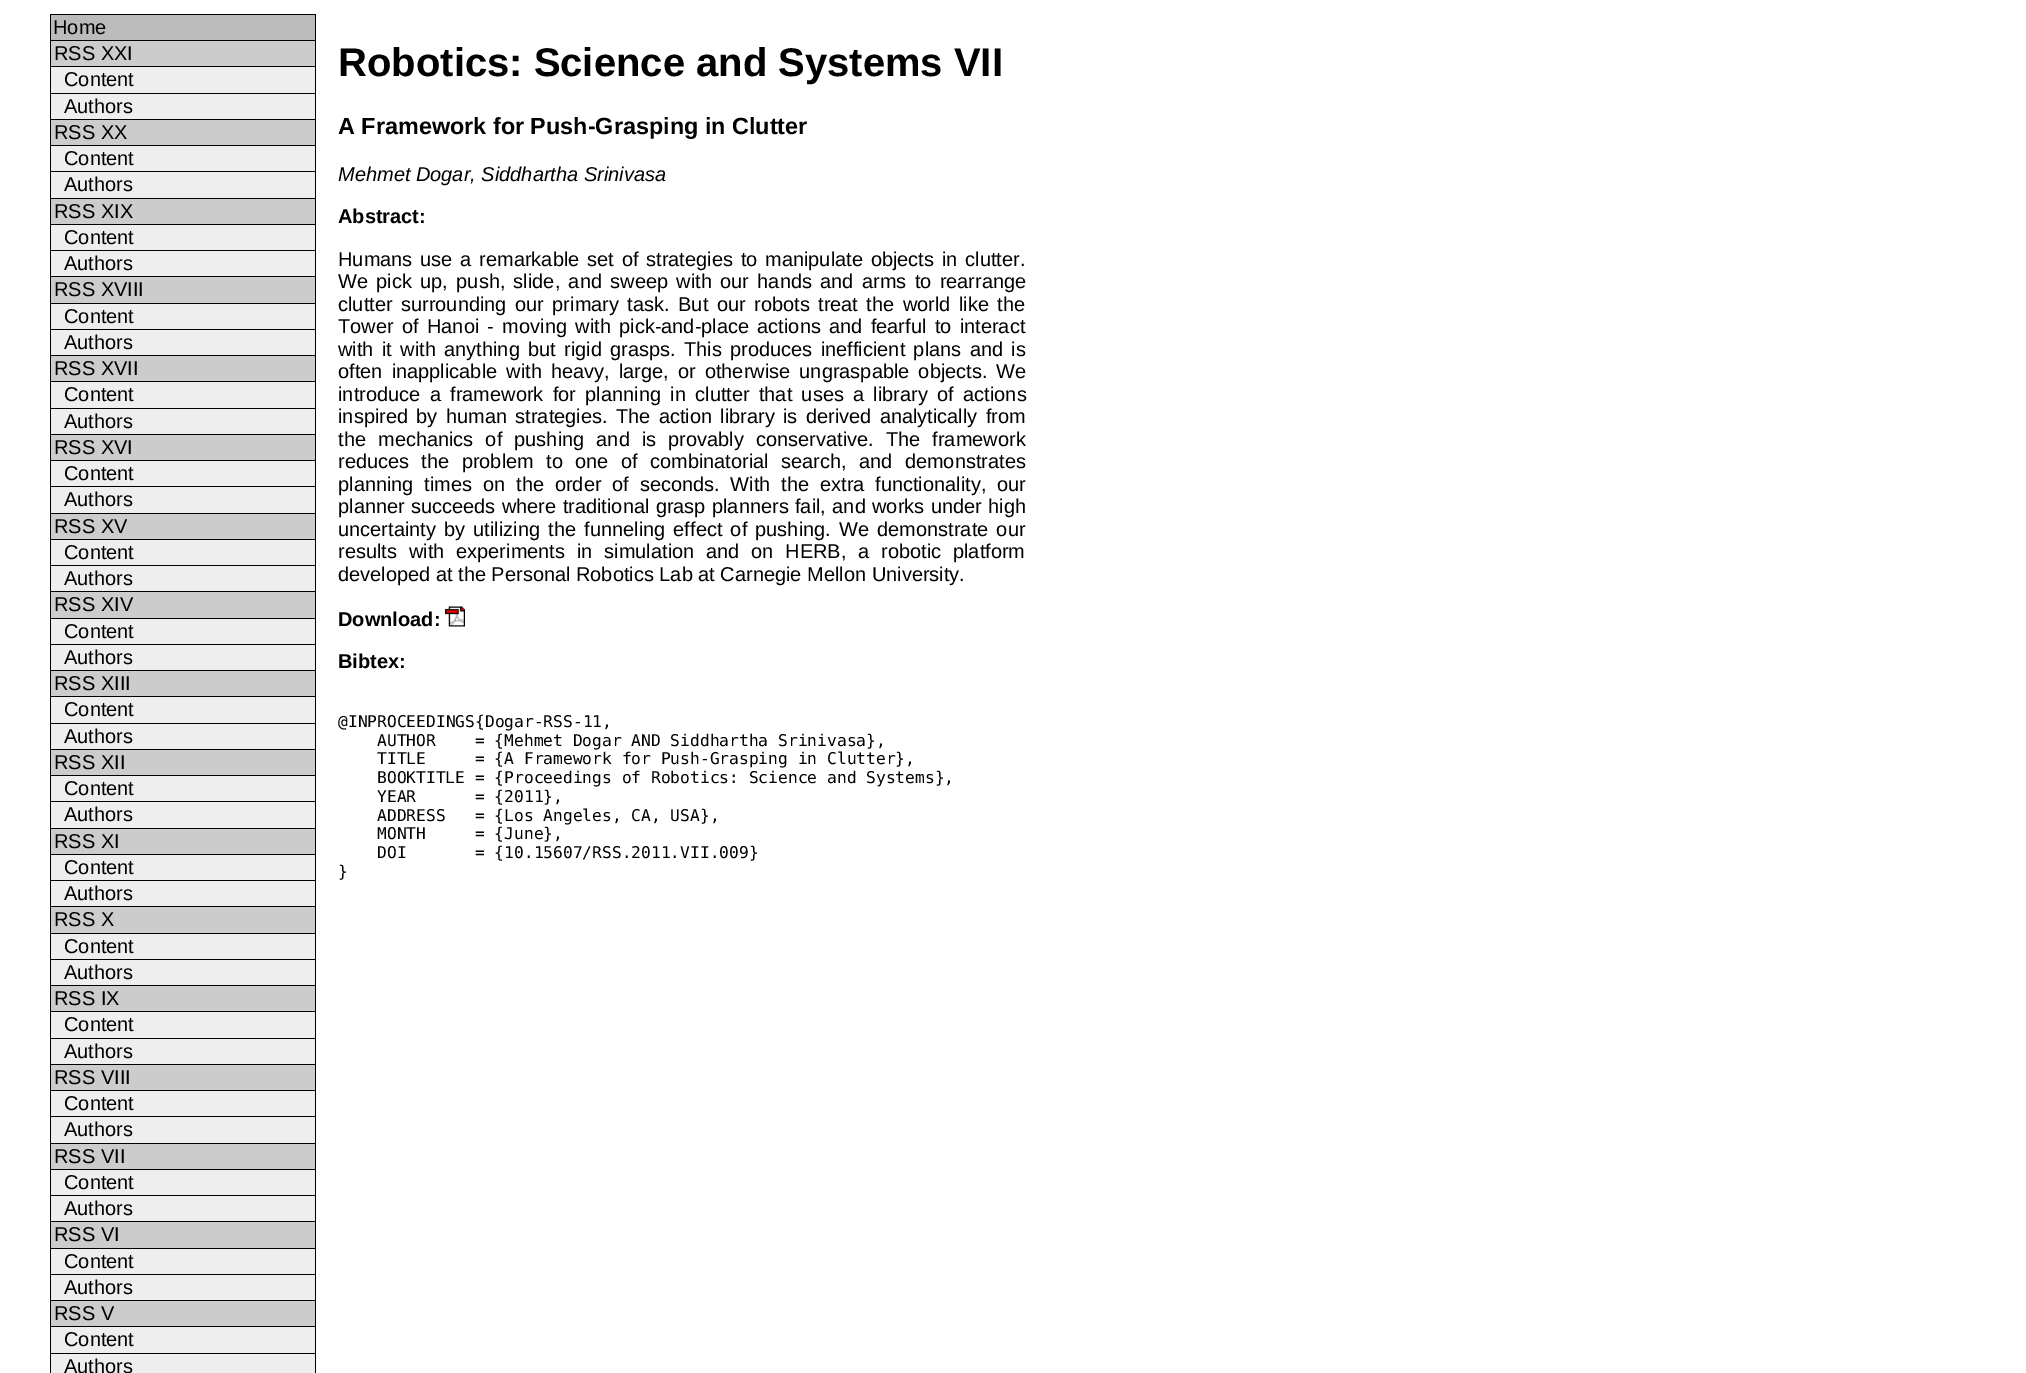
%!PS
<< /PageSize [2026 1373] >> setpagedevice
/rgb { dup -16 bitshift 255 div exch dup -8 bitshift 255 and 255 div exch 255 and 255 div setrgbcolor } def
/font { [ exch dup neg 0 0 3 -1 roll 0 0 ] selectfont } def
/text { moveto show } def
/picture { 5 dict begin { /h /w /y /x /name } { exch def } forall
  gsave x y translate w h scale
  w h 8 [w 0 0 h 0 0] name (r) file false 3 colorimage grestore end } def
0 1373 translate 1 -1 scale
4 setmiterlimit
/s1 { /LiberationSans-Regular 20 font 16#000000 rgb } def
/s2 { /LiberationSans-Bold 40 font 16#000000 rgb } def
/s3 { /LiberationSans-Bold 23.4 font 16#000000 rgb } def
/s4 { /LiberationSans-Italic 20 font 16#000000 rgb } def
/s5 { /LiberationSans-Bold 20 font 16#000000 rgb } def
/s6 { /DejaVuSansMono-Regular 16.25 font 16#000000 rgb } def
16#FFFFFF rgb
0 0 2026 1373 rectfill
16#BBBBBB rgb
51 15 264 25 rectfill
16#000000 rgb
50 14 266 1 rectfill
315 14 1 26 rectfill
50 14 1 26 rectfill
s1
(Home) 53 34 text
16#CCCCCC rgb
51 41 264 25 rectfill
16#000000 rgb
50 40 266 1 rectfill
315 40 1 26 rectfill
50 40 1 26 rectfill
(RSS XXI) 54 60 text
16#EEEEEE rgb
51 67 264 26 rectfill
16#000000 rgb
50 66 266 1 rectfill
315 66 1 27 rectfill
50 66 1 27 rectfill
(Content) 64 86 text
16#EEEEEE rgb
51 94 264 25 rectfill
16#000000 rgb
50 93 266 1 rectfill
315 93 1 26 rectfill
50 93 1 26 rectfill
(Authors) 64 113 text
16#CCCCCC rgb
51 120 264 25 rectfill
16#000000 rgb
50 119 266 1 rectfill
315 119 1 26 rectfill
50 119 1 26 rectfill
(RSS XX) 54 139 text
16#EEEEEE rgb
51 146 264 25 rectfill
16#000000 rgb
50 145 266 1 rectfill
315 145 1 26 rectfill
50 145 1 26 rectfill
(Content) 64 165 text
16#EEEEEE rgb
51 172 264 26 rectfill
16#000000 rgb
50 171 266 1 rectfill
315 171 1 27 rectfill
50 171 1 27 rectfill
(Authors) 64 191 text
16#CCCCCC rgb
51 199 264 25 rectfill
16#000000 rgb
50 198 266 1 rectfill
315 198 1 26 rectfill
50 198 1 26 rectfill
(RSS XIX) 54 218 text
16#EEEEEE rgb
51 225 264 25 rectfill
16#000000 rgb
50 224 266 1 rectfill
315 224 1 26 rectfill
50 224 1 26 rectfill
(Content) 64 244 text
16#EEEEEE rgb
51 251 264 25 rectfill
16#000000 rgb
50 250 266 1 rectfill
315 250 1 26 rectfill
50 250 1 26 rectfill
(Authors) 64 270 text
16#CCCCCC rgb
51 277 264 26 rectfill
16#000000 rgb
50 276 266 1 rectfill
315 276 1 27 rectfill
50 276 1 27 rectfill
(RSS XVIII) 54 296 text
16#EEEEEE rgb
51 304 264 25 rectfill
16#000000 rgb
50 303 266 1 rectfill
315 303 1 26 rectfill
50 303 1 26 rectfill
(Content) 64 323 text
16#EEEEEE rgb
51 330 264 25 rectfill
16#000000 rgb
50 329 266 1 rectfill
315 329 1 26 rectfill
50 329 1 26 rectfill
(Authors) 64 349 text
16#CCCCCC rgb
51 356 264 25 rectfill
16#000000 rgb
50 355 266 1 rectfill
315 355 1 26 rectfill
50 355 1 26 rectfill
(RSS XVII) 54 375 text
16#EEEEEE rgb
51 382 264 26 rectfill
16#000000 rgb
50 381 266 1 rectfill
315 381 1 27 rectfill
50 381 1 27 rectfill
(Content) 64 401 text
16#EEEEEE rgb
51 409 264 25 rectfill
16#000000 rgb
50 408 266 1 rectfill
315 408 1 26 rectfill
50 408 1 26 rectfill
(Authors) 64 428 text
16#CCCCCC rgb
51 435 264 25 rectfill
16#000000 rgb
50 434 266 1 rectfill
315 434 1 26 rectfill
50 434 1 26 rectfill
(RSS XVI) 54 454 text
16#EEEEEE rgb
51 461 264 25 rectfill
16#000000 rgb
50 460 266 1 rectfill
315 460 1 26 rectfill
50 460 1 26 rectfill
(Content) 64 480 text
16#EEEEEE rgb
51 487 264 26 rectfill
16#000000 rgb
50 486 266 1 rectfill
315 486 1 27 rectfill
50 486 1 27 rectfill
(Authors) 64 506 text
16#CCCCCC rgb
51 514 264 25 rectfill
16#000000 rgb
50 513 266 1 rectfill
315 513 1 26 rectfill
50 513 1 26 rectfill
(RSS XV) 54 533 text
16#EEEEEE rgb
51 540 264 25 rectfill
16#000000 rgb
50 539 266 1 rectfill
315 539 1 26 rectfill
50 539 1 26 rectfill
(Content) 64 559 text
16#EEEEEE rgb
51 566 264 25 rectfill
16#000000 rgb
50 565 266 1 rectfill
315 565 1 26 rectfill
50 565 1 26 rectfill
(Authors) 64 585 text
16#CCCCCC rgb
51 592 264 26 rectfill
16#000000 rgb
50 591 266 1 rectfill
315 591 1 27 rectfill
50 591 1 27 rectfill
(RSS XIV) 54 611 text
16#EEEEEE rgb
51 619 264 25 rectfill
16#000000 rgb
50 618 266 1 rectfill
315 618 1 26 rectfill
50 618 1 26 rectfill
(Content) 64 638 text
16#EEEEEE rgb
51 645 264 25 rectfill
16#000000 rgb
50 644 266 1 rectfill
315 644 1 26 rectfill
50 644 1 26 rectfill
(Authors) 64 664 text
16#CCCCCC rgb
51 671 264 25 rectfill
16#000000 rgb
50 670 266 1 rectfill
315 670 1 26 rectfill
50 670 1 26 rectfill
(RSS XIII) 54 690 text
16#EEEEEE rgb
51 697 264 26 rectfill
16#000000 rgb
50 696 266 1 rectfill
315 696 1 27 rectfill
50 696 1 27 rectfill
(Content) 64 716 text
16#EEEEEE rgb
51 724 264 25 rectfill
16#000000 rgb
50 723 266 1 rectfill
315 723 1 26 rectfill
50 723 1 26 rectfill
(Authors) 64 743 text
16#CCCCCC rgb
51 750 264 25 rectfill
16#000000 rgb
50 749 266 1 rectfill
315 749 1 26 rectfill
50 749 1 26 rectfill
(RSS XII) 54 769 text
16#EEEEEE rgb
51 776 264 25 rectfill
16#000000 rgb
50 775 266 1 rectfill
315 775 1 26 rectfill
50 775 1 26 rectfill
(Content) 64 795 text
16#EEEEEE rgb
51 802 264 26 rectfill
16#000000 rgb
50 801 266 1 rectfill
315 801 1 27 rectfill
50 801 1 27 rectfill
(Authors) 64 821 text
16#CCCCCC rgb
51 829 264 25 rectfill
16#000000 rgb
50 828 266 1 rectfill
315 828 1 26 rectfill
50 828 1 26 rectfill
(RSS XI) 54 848 text
16#EEEEEE rgb
51 855 264 25 rectfill
16#000000 rgb
50 854 266 1 rectfill
315 854 1 26 rectfill
50 854 1 26 rectfill
(Content) 64 874 text
16#EEEEEE rgb
51 881 264 25 rectfill
16#000000 rgb
50 880 266 1 rectfill
315 880 1 26 rectfill
50 880 1 26 rectfill
(Authors) 64 900 text
16#CCCCCC rgb
51 907 264 26 rectfill
16#000000 rgb
50 906 266 1 rectfill
315 906 1 27 rectfill
50 906 1 27 rectfill
(RSS X) 54 926 text
16#EEEEEE rgb
51 934 264 25 rectfill
16#000000 rgb
50 933 266 1 rectfill
315 933 1 26 rectfill
50 933 1 26 rectfill
(Content) 64 953 text
16#EEEEEE rgb
51 960 264 25 rectfill
16#000000 rgb
50 959 266 1 rectfill
315 959 1 26 rectfill
50 959 1 26 rectfill
(Authors) 64 979 text
16#CCCCCC rgb
51 986 264 25 rectfill
16#000000 rgb
50 985 266 1 rectfill
315 985 1 26 rectfill
50 985 1 26 rectfill
(RSS IX) 54 1005 text
16#EEEEEE rgb
51 1012 264 26 rectfill
16#000000 rgb
50 1011 266 1 rectfill
315 1011 1 27 rectfill
50 1011 1 27 rectfill
(Content) 64 1031 text
16#EEEEEE rgb
51 1039 264 25 rectfill
16#000000 rgb
50 1038 266 1 rectfill
315 1038 1 26 rectfill
50 1038 1 26 rectfill
(Authors) 64 1058 text
16#CCCCCC rgb
51 1065 264 25 rectfill
16#000000 rgb
50 1064 266 1 rectfill
315 1064 1 26 rectfill
50 1064 1 26 rectfill
(RSS VIII) 54 1084 text
16#EEEEEE rgb
51 1091 264 25 rectfill
16#000000 rgb
50 1090 266 1 rectfill
315 1090 1 26 rectfill
50 1090 1 26 rectfill
(Content) 64 1110 text
16#EEEEEE rgb
51 1117 264 26 rectfill
16#000000 rgb
50 1116 266 1 rectfill
315 1116 1 27 rectfill
50 1116 1 27 rectfill
(Authors) 64 1136 text
16#CCCCCC rgb
51 1144 264 25 rectfill
16#000000 rgb
50 1143 266 1 rectfill
315 1143 1 26 rectfill
50 1143 1 26 rectfill
(RSS VII) 54 1163 text
16#EEEEEE rgb
51 1170 264 25 rectfill
16#000000 rgb
50 1169 266 1 rectfill
315 1169 1 26 rectfill
50 1169 1 26 rectfill
(Content) 64 1189 text
16#EEEEEE rgb
51 1196 264 25 rectfill
16#000000 rgb
50 1195 266 1 rectfill
315 1195 1 26 rectfill
50 1195 1 26 rectfill
(Authors) 64 1215 text
16#CCCCCC rgb
51 1222 264 26 rectfill
16#000000 rgb
50 1221 266 1 rectfill
315 1221 1 27 rectfill
50 1221 1 27 rectfill
(RSS VI) 54 1241 text
16#EEEEEE rgb
51 1249 264 25 rectfill
16#000000 rgb
50 1248 266 1 rectfill
315 1248 1 26 rectfill
50 1248 1 26 rectfill
(Content) 64 1268 text
16#EEEEEE rgb
51 1275 264 25 rectfill
16#000000 rgb
50 1274 266 1 rectfill
315 1274 1 26 rectfill
50 1274 1 26 rectfill
(Authors) 64 1294 text
16#CCCCCC rgb
51 1301 264 25 rectfill
16#000000 rgb
50 1300 266 1 rectfill
315 1300 1 26 rectfill
50 1300 1 26 rectfill
(RSS V) 54 1320 text
16#EEEEEE rgb
51 1327 264 26 rectfill
16#000000 rgb
50 1326 266 1 rectfill
315 1326 1 27 rectfill
50 1326 1 27 rectfill
(Content) 64 1346 text
16#EEEEEE rgb
51 1354 264 19 rectfill
16#000000 rgb
50 1353 266 1 rectfill
315 1353 1 20 rectfill
50 1353 1 20 rectfill
(Authors) 64 1373 text
s2
(Robotics: Science and Systems VII) 338 76 text
s3
(A Framework for Push-Grasping in Clutter) 338 134 text
s4
(Mehmet Dogar, Siddhartha Srinivasa) 338 181 text
s5
(Abstract:) 338 223 text
/LiberationSans-Regular 20 font
338 266 moveto 2.25 0 32 (Humans use a remarkable set of strategies to manipulate objects in clutter.) widthshow
338 288 moveto 2.75 0 32 (We pick up, push, slide, and sweep with our hands and arms to rearrange) widthshow
338 311 moveto 2.9 0 32 (clutter surrounding our primary task. But our robots treat the world like the) widthshow
338 333 moveto 2.75 0 32 (Tower of Hanoi - moving with pick-and-place actions and fearful to interact) widthshow
338 356 moveto 2.75 0 32 (with it with anything but rigid grasps. This produces inefficient plans and is) widthshow
338 378 moveto 3.5 0 32 (often inapplicable with heavy, large, or otherwise ungraspable objects. We) widthshow
338 401 moveto 3.75 0 32 (introduce a framework for planning in clutter that uses a library of actions) widthshow
338 423 moveto 2.75 0 32 (inspired by human strategies. The action library is derived analytically from) widthshow
338 446 moveto 6.5 0 32 (the mechanics of pushing and is provably conservative. The framework) widthshow
338 468 moveto 6.75 0 32 (reduces the problem to one of combinatorial search, and demonstrates) widthshow
338 491 moveto 5.25 0 32 (planning times on the order of seconds. With the extra functionality, our) widthshow
338 513 moveto 0.75 0 32 (planner succeeds where traditional grasp planners fail, and works under high) widthshow
338 536 moveto 2.6 0 32 (uncertainty by utilizing the funneling effect of pushing. We demonstrate our) widthshow
338 558 moveto 6.25 0 32 (results with experiments in simulation and on HERB, a robotic platform) widthshow
(developed at the Personal Robotics Lab at Carnegie Mellon University.) 338 581 text
s5
(Download:) 338 626 text
(pic1.raw) 445 606 20 21 picture
(Bibtex:) 338 668 text
s6
(@INPROCEEDINGS{Dogar-RSS-11,) 338 727 text
(AUTHOR    = {Mehmet Dogar AND Siddhartha Srinivasa},) 377 746 text
(TITLE     = {A Framework for Push-Grasping in Clutter},) 377 764 text
(BOOKTITLE = {Proceedings of Robotics: Science and Systems},) 377 783 text
(YEAR      = {2011},) 377 802 text
(ADDRESS   = {Los Angeles, CA, USA},) 377 821 text
(MONTH     = {June},) 377 839 text
(DOI       = {10.15607/RSS.2011.VII.009}) 377 858 text
(}) 338 877 text
showpage
